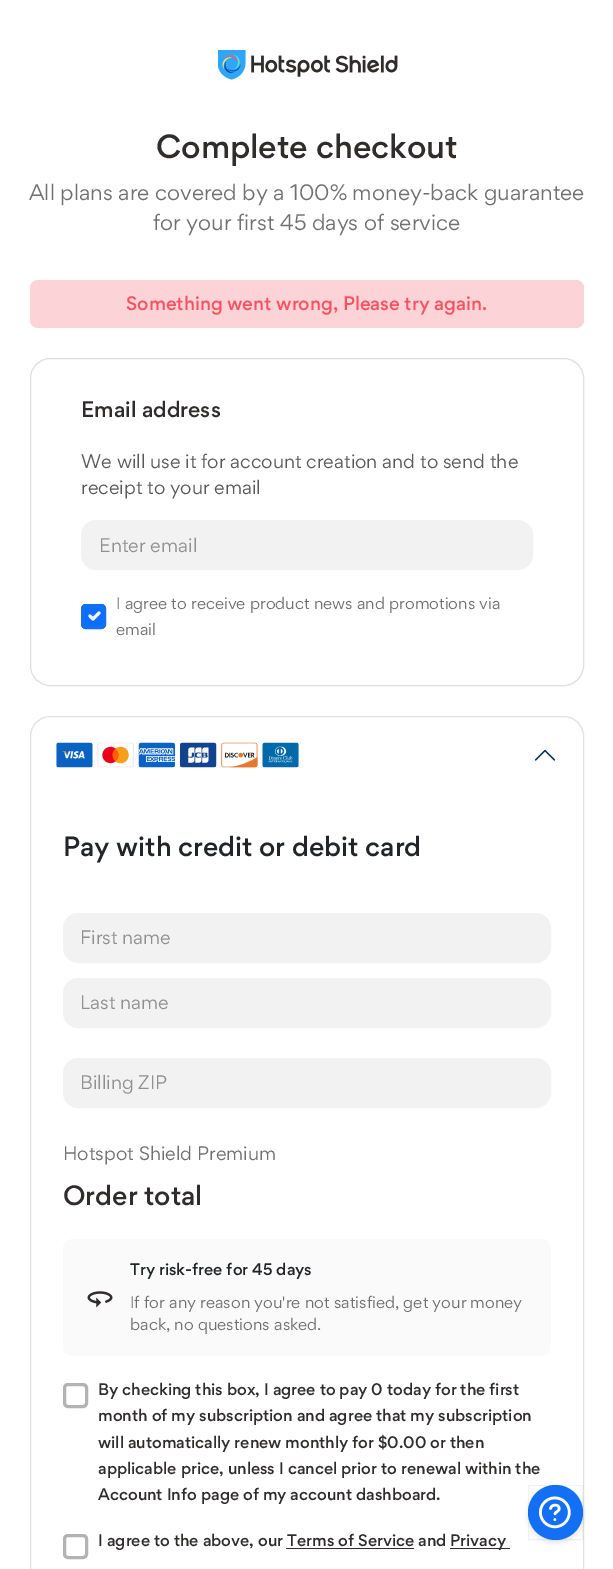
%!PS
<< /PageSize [613 1569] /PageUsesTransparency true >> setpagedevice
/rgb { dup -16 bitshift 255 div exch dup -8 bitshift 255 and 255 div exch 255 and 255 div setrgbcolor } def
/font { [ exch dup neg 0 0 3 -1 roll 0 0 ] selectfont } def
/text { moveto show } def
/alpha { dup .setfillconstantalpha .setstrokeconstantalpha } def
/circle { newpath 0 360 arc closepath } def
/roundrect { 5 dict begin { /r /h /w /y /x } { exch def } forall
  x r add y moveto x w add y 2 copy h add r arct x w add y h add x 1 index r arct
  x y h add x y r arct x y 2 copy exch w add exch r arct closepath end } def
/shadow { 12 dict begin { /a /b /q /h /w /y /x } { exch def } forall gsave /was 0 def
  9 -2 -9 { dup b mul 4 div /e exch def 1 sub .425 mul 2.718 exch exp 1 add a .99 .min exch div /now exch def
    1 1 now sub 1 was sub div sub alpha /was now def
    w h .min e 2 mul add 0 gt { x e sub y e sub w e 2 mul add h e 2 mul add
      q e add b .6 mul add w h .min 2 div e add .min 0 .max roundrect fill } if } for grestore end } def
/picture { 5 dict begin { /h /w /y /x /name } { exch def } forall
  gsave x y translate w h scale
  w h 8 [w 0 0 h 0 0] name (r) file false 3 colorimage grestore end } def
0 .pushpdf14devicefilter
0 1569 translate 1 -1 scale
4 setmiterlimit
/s1 { /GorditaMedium-Medium 30 font 16#312C2C rgb } def
/s2 { /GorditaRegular-Regular 20 font 16#707070 rgb } def
/s3 { /GorditaMedium-Medium 17.5 font 16#F65260 rgb } def
/s4 { /GorditaMedium-Medium 20 font 16#312C2C rgb } def
/s5 { /GorditaRegular-Regular 17.5 font 16#595959 rgb } def
/s6 { /GorditaRegular-Regular 17.5 font 16#909090 rgb } def
/s7 { /GorditaRegular-Regular 15 font 16#707070 rgb } def
/s8 { /GorditaMedium-Medium 25 font 16#212529 rgb } def
/s9 { /GorditaRegular-Regular 17.5 font 16#707070 rgb } def
/s10 { /GorditaMedium-Medium 25 font 16#312C2C rgb } def
/s11 { /GorditaMedium-Medium 15 font 16#212529 rgb } def
/s12 { /GorditaMedium-Medium 15 font 16#312C2C rgb } def
16#FFFFFF rgb
0 0 613 1569 rectfill
(pic1.raw) 218 50 180 30 picture
s1
(Complete checkout) 156 158 text
s2
(All plans are covered by a 100% money-back guarantee) 29 200 text
(for your first 45 days of service) 153 230 text
16#FCD3D7 rgb
30 280 554 48 8 roundrect fill
s3
(Something went wrong, Please try again.) 126 310 text
16#DFDFDF rgb
30.5 358.5 553 327 19.5 roundrect stroke
s4
(Email address) 81 417 text
s5
(We will use it for account creation and to send the) 81 468 text
(receipt to your email) 81 494 text
16#F2F2F2 rgb
82.5 521.5 449 47 13.5 roundrect gsave fill grestore
3 setlinewidth
stroke
s6
(Enter email) 99 552 text
16#0D6EFD rgb
81 604 25 25 5 roundrect fill
16#FFFFFF rgb
1 setlinecap
1 setlinejoin
90 616 moveto 93 619 lineto 99 613 lineto stroke
16#1370F5 rgb
0 setlinecap
0 setlinejoin
82.5 605.5 22 22 3.5 roundrect stroke
s7
(I agree to receive product news and promotions via) 116 609 text
(email) 116 635 text
16#DFE1E5 rgb
1 setlinewidth
30.5 716.5 553 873 19.5 roundrect stroke
(pic2.raw) 56 742 243 26 picture
(pic3.raw) 534 749 22 12 picture
s8
(Pay with credit or debit card) 63 856 text
16#F2F2F2 rgb
64.5 914.5 485 47 13.5 roundrect gsave fill grestore
3 setlinewidth
stroke
s6
(First name) 80 944 text
16#F2F2F2 rgb
64.5 979.5 485 47 13.5 roundrect gsave fill grestore
stroke
s6
(Last name) 80 1009 text
16#F2F2F2 rgb
64.5 1059.5 485 47 13.5 roundrect gsave fill grestore
stroke
s6
(Billing ZIP) 80 1089 text
s9
(Hotspot Shield Premium) 63 1160 text
s10
(Order total) 63 1205 text
16#FAFAFA rgb
63 1239 488 117 10 roundrect fill
(pic4.raw) 87 1291 26 17 picture
s11
(Try risk-free for 45 days) 130 1275 text
s7
(If for any reason you're not satisfied, get your money) 130 1308 text
(back, no questions asked.) 130 1330 text
16#B3B3B3 rgb
64.5 1384.5 22 22 3.5 roundrect stroke
s12
(By checking this box, I agree to pay 0 today for the first) 98 1395 text
(month of my subscription and agree that my subscription) 98 1421 text
(will automatically renew monthly for $0.00 or then) 98 1448 text
(applicable price, unless I cancel prior to renewal within the) 98 1474 text
(Account Info page of my account dashboard.) 98 1500 text
16#B3B3B3 rgb
64.5 1535.5 22 22 3.5 roundrect stroke
s12
(I agree to the above, our Terms of Service and) 98 1546 text
450 1548 60 1 rectfill
(Privacy) 450 1546 text
286 1548 128 1 rectfill
16#000000 rgb
528 1488 55 55 27.5 2.5 0.1 shadow
16#1370F5 rgb
555.5 1512.5 27.5 circle fill
0.05 alpha
16#000000 rgb
1 setlinewidth
528.5 1485.5 54 54 rectstroke
1 alpha
(pic5.raw) 538 1496 33 33 picture
.poppdf14devicefilter showpage
